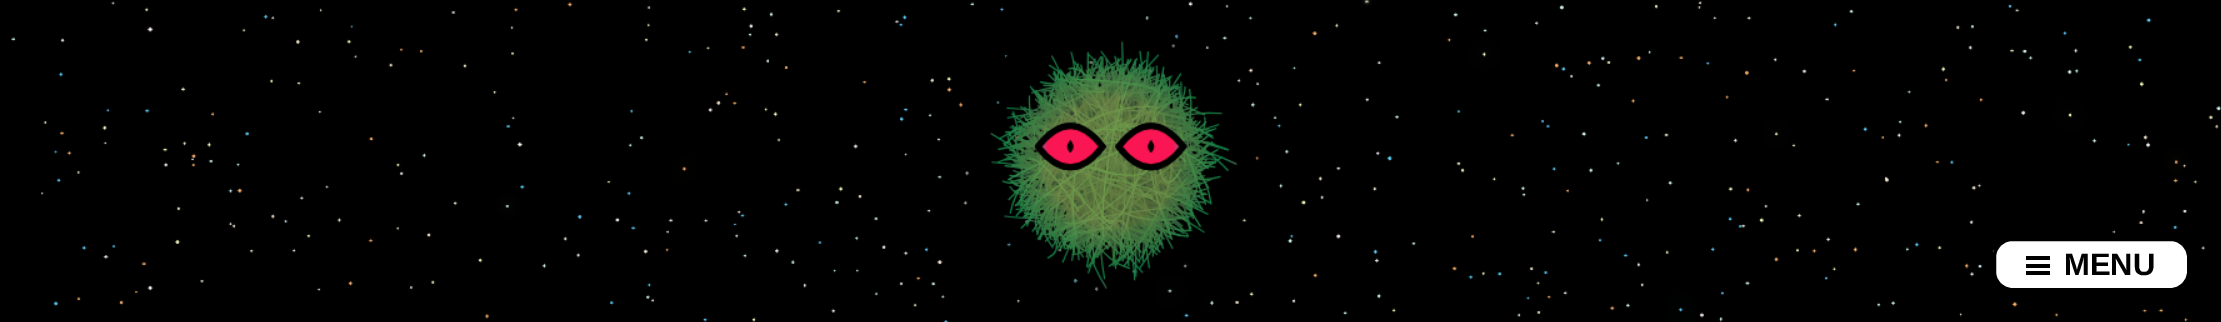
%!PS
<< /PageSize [2221 322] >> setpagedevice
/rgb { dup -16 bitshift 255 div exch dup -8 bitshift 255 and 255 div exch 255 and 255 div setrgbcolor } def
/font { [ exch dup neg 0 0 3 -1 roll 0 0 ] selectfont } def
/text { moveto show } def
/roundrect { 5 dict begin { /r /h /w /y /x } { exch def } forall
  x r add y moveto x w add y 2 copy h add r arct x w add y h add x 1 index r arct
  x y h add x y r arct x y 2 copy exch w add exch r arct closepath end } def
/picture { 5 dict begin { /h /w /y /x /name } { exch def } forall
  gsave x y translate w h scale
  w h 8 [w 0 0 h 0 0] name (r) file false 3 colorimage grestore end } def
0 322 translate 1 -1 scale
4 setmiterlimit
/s1 { /LiberationSans-Bold 31 font 16#000000 rgb } def
16#FFFFFF rgb
0 0 2221 322 rectfill
(pic1.raw) 0 0 2221 322 picture
1994.5 239.5 194 50 17.5 roundrect gsave fill grestore
16#000000 rgb
3 setlinewidth
stroke
2026 256 24 4 rectfill
2026 264 24 4 rectfill
2026 271 24 4 rectfill
s1
(MENU) 2064 275 text
showpage
